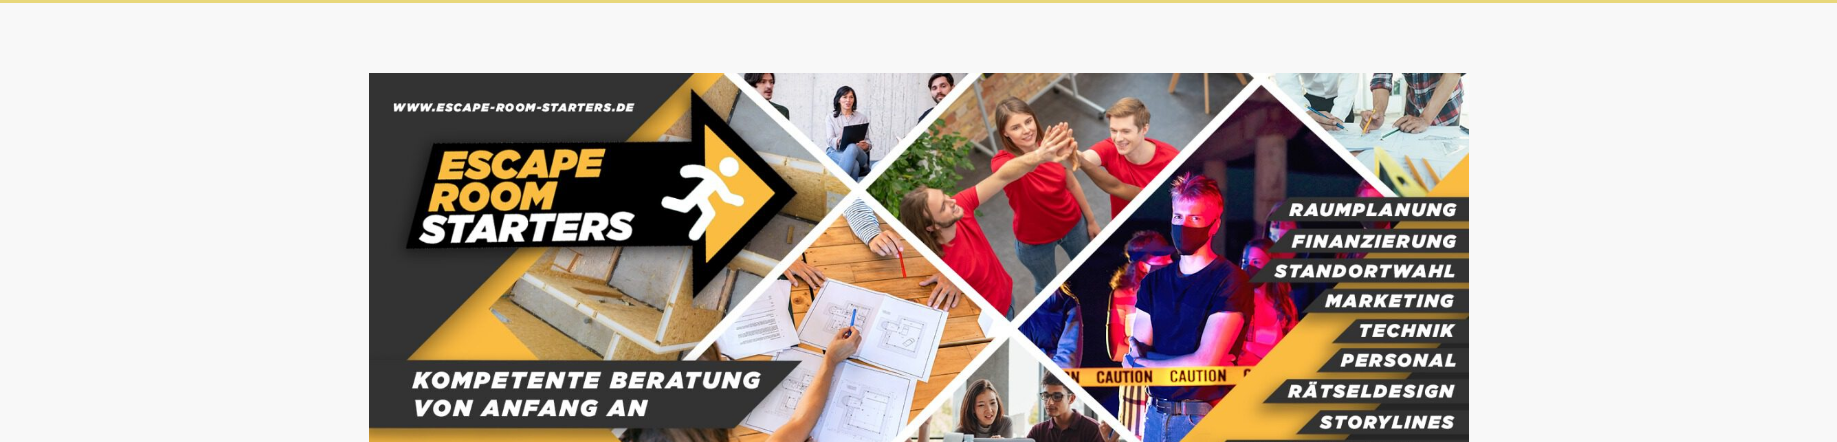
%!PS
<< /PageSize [1837 442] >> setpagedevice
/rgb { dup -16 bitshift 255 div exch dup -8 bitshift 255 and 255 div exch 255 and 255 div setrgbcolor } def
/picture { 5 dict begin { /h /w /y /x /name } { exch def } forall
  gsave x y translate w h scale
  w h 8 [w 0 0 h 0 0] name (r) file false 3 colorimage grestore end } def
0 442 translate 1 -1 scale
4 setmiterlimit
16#E8D77A rgb
0 0 1837 442 rectfill
16#F8F8F8 rgb
0 3 1837 439 rectfill
(pic1.raw) 369 73 1100 369 picture
showpage
